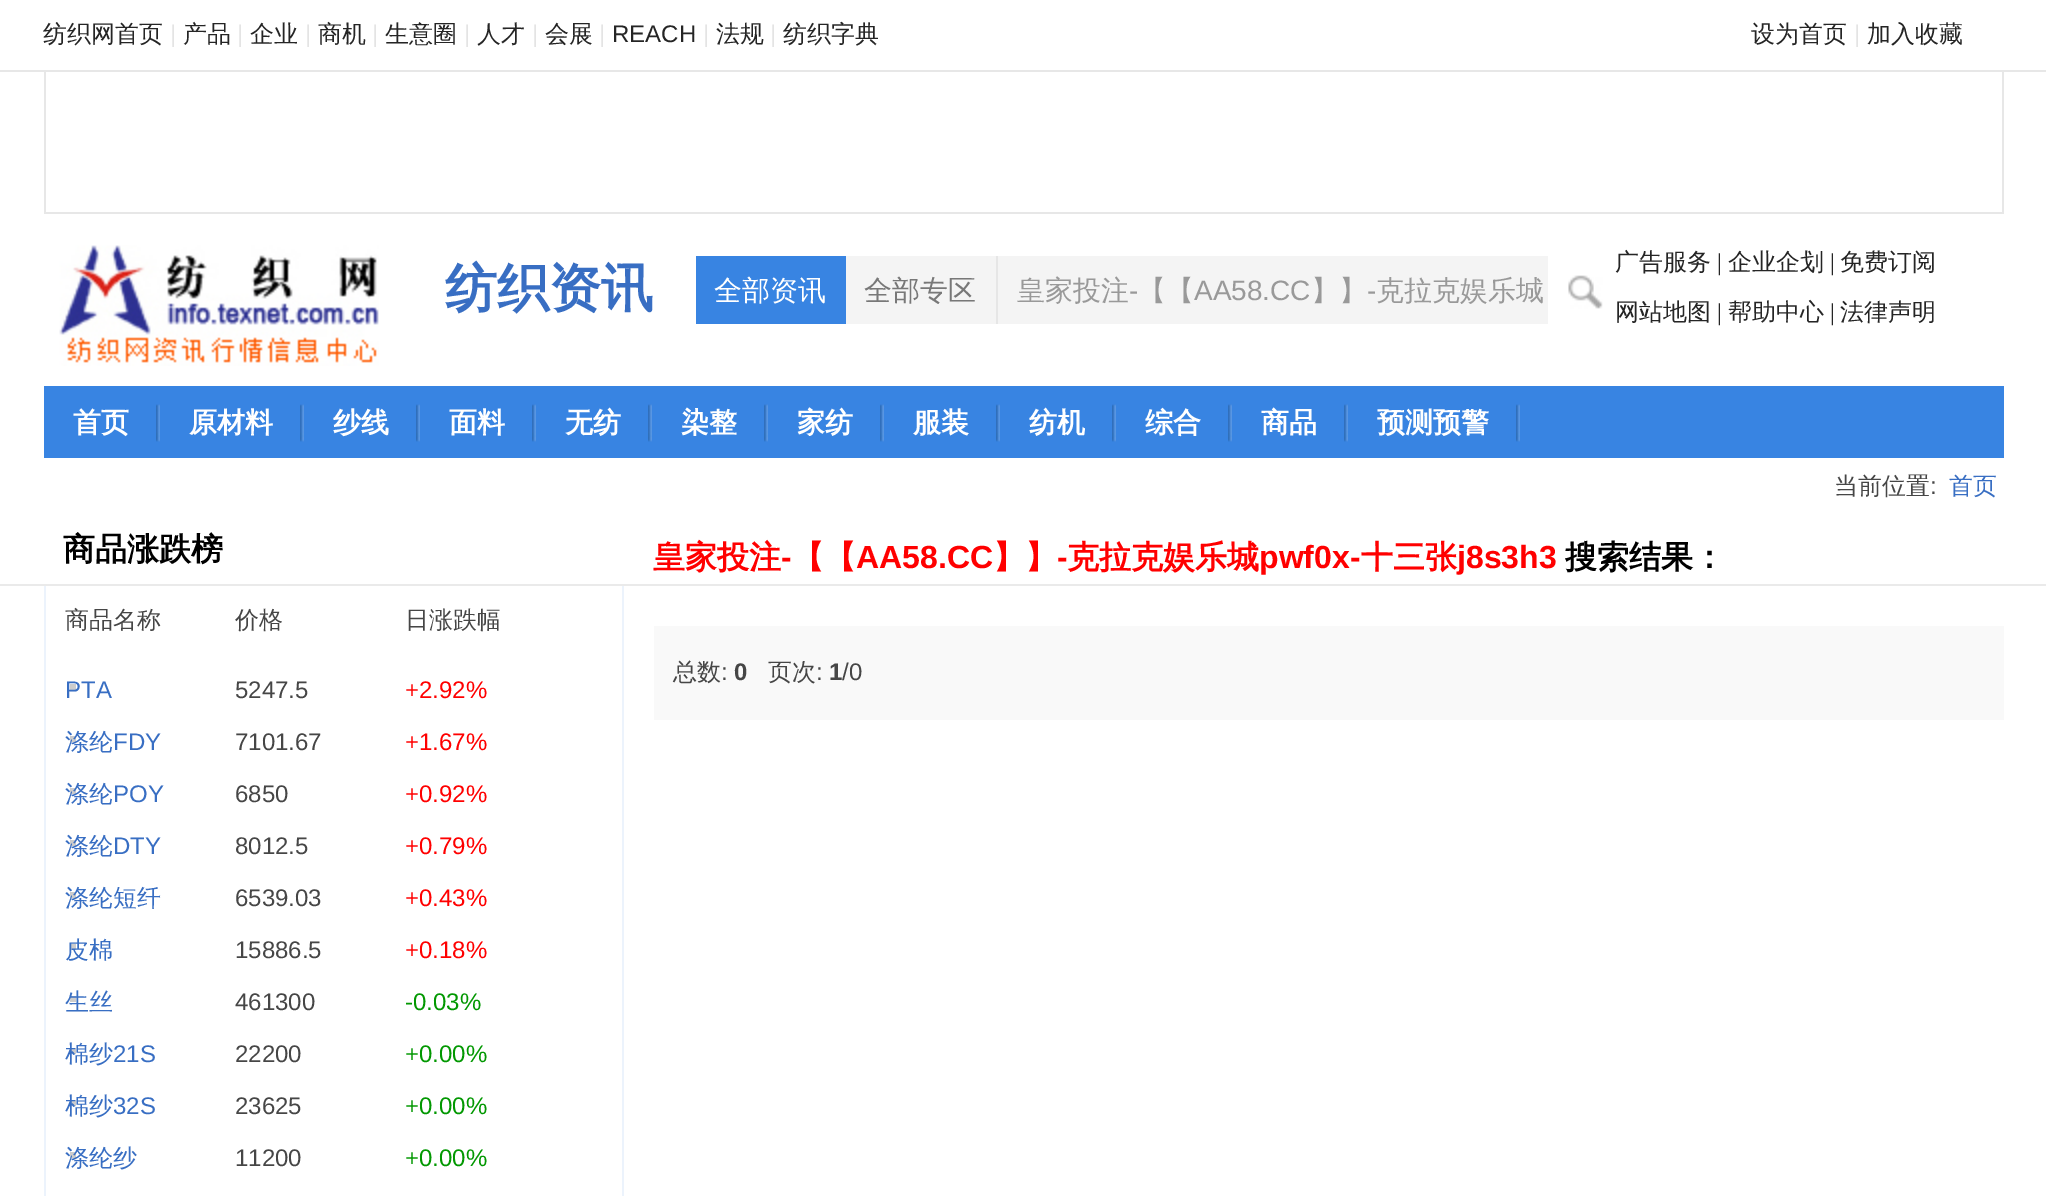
%!PS
<< /PageSize [2046 1196] >> setpagedevice
/rgb { dup -16 bitshift 255 div exch dup -8 bitshift 255 and 255 div exch 255 and 255 div setrgbcolor } def
/font { [ exch dup neg 0 0 3 -1 roll 0 0 ] selectfont } def
/text { moveto show } def
/picture { 5 dict begin { /h /w /y /x /name } { exch def } forall
  gsave x y translate w h scale
  w h 8 [w 0 0 h 0 0] name (r) file false 3 colorimage grestore end } def
0 1196 translate 1 -1 scale
4 setmiterlimit
/s1 { /WenQuanYiZenHei-Medium 24 font 16#252525 rgb } def
/s2 { /LiberationSans-Regular 24 font 16#E4E4E4 rgb } def
/s3 { /LiberationSans-Regular 24 font 16#252525 rgb } def
/s4 { /WenQuanYiZenHei-Bold 52 font 16#386EC3 rgb } def
/s5 { /WenQuanYiZenHei-Medium 28 font 16#FFFFFF rgb } def
/s6 { /WenQuanYiZenHei-Medium 28 font 16#787878 rgb } def
/s7 { /WenQuanYiZenHei-Medium 28 font 16#999999 rgb } def
/s8 { /LiberationSans-Regular 28 font 16#999999 rgb } def
/s9 { /LiberationSerif-Regular 24 font 16#252525 rgb } def
/s10 { /WenQuanYiZenHei-Bold 28 font 16#FFFFFF rgb } def
/s11 { /WenQuanYiZenHei-Medium 24 font 16#464646 rgb } def
/s12 { /LiberationSans-Regular 24 font 16#464646 rgb } def
/s13 { /WenQuanYiZenHei-Medium 24 font 16#386EC3 rgb } def
/s14 { /WenQuanYiZenHei-Bold 32 font 16#000000 rgb } def
/s15 { /WenQuanYiZenHei-Bold 32 font 16#FF0000 rgb } def
/s16 { /LiberationSans-Bold 32 font 16#FF0000 rgb } def
/s17 { /LiberationSans-Regular 24 font 16#386EC3 rgb } def
/s18 { /LiberationSans-Regular 24 font 16#FF0000 rgb } def
/s19 { /LiberationSans-Regular 24 font 16#029801 rgb } def
/s20 { /LiberationSans-Bold 24 font 16#464646 rgb } def
16#FFFFFF rgb
0 0 2046 1196 rectfill
16#E7E7E7 rgb
0 70 2046 2 rectfill
s1
(纺织网首页) 43 42 text
s2
(|) 170 42 text
s1
(产品) 183 42 text
s2
(|) 237 42 text
s1
(企业) 250 42 text
s2
(|) 305 42 text
s1
(商机) 318 42 text
s2
(|) 372 42 text
s1
(生意圈) 385 42 text
s2
(|) 464 42 text
s1
(人才) 477 42 text
s2
(|) 532 42 text
s1
(会展) 545 42 text
s2
(|) 599 42 text
s3
(REACH) 612 42 text
s2
(|) 703 42 text
s1
(法规) 716 42 text
s2
(|) 770 42 text
s1
(纺织字典) 783 42 text
(设为首页) 1751 42 text
s2
(|) 1854 42 text
s1
(加入收藏) 1867 42 text
16#E7E7E7 rgb
2002 72 2 142 rectfill
44 212 1960 2 rectfill
44 72 2 142 rectfill
(pic1.raw) 59 245 320 121 picture
s4
(纺织资讯) 445 306 text
16#3884E2 rgb
696 256 150 68 rectfill
s5
(全部资讯) 714 300 text
16#F4F4F4 rgb
846 256 150 68 rectfill
16#E6E6E6 rgb
996 256 2 68 rectfill
s6
(全部专区) 864 300 text
16#F4F4F4 rgb
998 256 550 68 rectfill
s7
(皇家投注) 1017 300 text
s8
(-) 1129 300 text
s7
(【【) 1138 300 text
s8
(AA58.CC) 1194 300 text
s7
(】】) 1311 300 text
s8
(-) 1367 300 text
s7
(克拉克娱乐城) 1376 300 text
(pic2.raw) 1568 275 35 34 picture
s1
(广告服务) 1615 270 text
s9
(|) 1717 270 text
s1
(企业企划) 1728 270 text
s9
(|) 1830 270 text
s1
(免费订阅) 1840 270 text
(网站地图) 1615 320 text
s9
(|) 1717 320 text
s1
(帮助中心) 1728 320 text
s9
(|) 1830 320 text
s1
(法律声明) 1840 320 text
16#3884E2 rgb
44 386 1960 72 rectfill
(pic3.raw) 156 404 4 38 picture
s10
(首页) 73 432 text
(pic3.raw) 300 404 4 38 picture
(原材料) 189 432 text
(pic3.raw) 416 404 4 38 picture
(纱线) 333 432 text
(pic3.raw) 532 404 4 38 picture
(面料) 449 432 text
(pic3.raw) 648 404 4 38 picture
(无纺) 565 432 text
(pic3.raw) 764 404 4 38 picture
(染整) 681 432 text
(pic3.raw) 880 404 4 38 picture
(家纺) 797 432 text
(pic3.raw) 996 404 4 38 picture
(服装) 913 432 text
(pic3.raw) 1112 404 4 38 picture
(纺机) 1029 432 text
(pic3.raw) 1228 404 4 38 picture
(综合) 1145 432 text
(pic3.raw) 1344 404 4 38 picture
(商品) 1261 432 text
(pic3.raw) 1516 404 4 38 picture
(预测预警) 1377 432 text
s11
(当前位置) 1834 494 text
s12
(:) 1930 494 text
s13
(首页) 1949 494 text
16#EAEAEA rgb
0 584 2046 2 rectfill
s14
(商品涨跌榜) 63 560 text
s15
(皇家投注) 653 568 text
s16
(-) 781 568 text
s15
(【【) 792 568 text
s16
(AA58.CC) 856 568 text
s15
(】】) 993 568 text
s16
(-) 1057 568 text
s15
(克拉克娱乐城) 1067 568 text
s16
(pwf0x-) 1259 568 text
s15
(十三张) 1361 568 text
s16
(j8s3h3) 1457 568 text
s14
(搜索结果：) 1565 568 text
16#ECF3FC rgb
622 586 2 610 rectfill
44 586 2 610 rectfill
s11
(商品名称) 65 628 text
(价格) 235 628 text
(日涨跌幅) 405 628 text
16#CCCCCC rgb
70 684 6 6 rectfill
s17
(PTA) 65 698 text
s12
(5247.5) 235 698 text
s18
(+2.92%) 405 698 text
16#CCCCCC rgb
70 736 6 6 rectfill
s13
(涤纶) 65 750 text
s17
(FDY) 113 750 text
s12
(7101.67) 235 750 text
s18
(+1.67%) 405 750 text
16#CCCCCC rgb
70 788 6 6 rectfill
s13
(涤纶) 65 802 text
s17
(POY) 113 802 text
s12
(6850) 235 802 text
s18
(+0.92%) 405 802 text
16#CCCCCC rgb
70 840 6 6 rectfill
s13
(涤纶) 65 854 text
s17
(DTY) 113 854 text
s12
(8012.5) 235 854 text
s18
(+0.79%) 405 854 text
16#CCCCCC rgb
70 892 6 6 rectfill
s13
(涤纶短纤) 65 906 text
s12
(6539.03) 235 906 text
s18
(+0.43%) 405 906 text
16#CCCCCC rgb
70 944 6 6 rectfill
s13
(皮棉) 65 958 text
s12
(15886.5) 235 958 text
s18
(+0.18%) 405 958 text
16#CCCCCC rgb
70 996 6 6 rectfill
s13
(生丝) 65 1010 text
s12
(461300) 235 1010 text
s19
(-0.03%) 405 1010 text
16#CCCCCC rgb
70 1048 6 6 rectfill
s13
(棉纱) 65 1062 text
s17
(21S) 113 1062 text
s12
(22200) 235 1062 text
s19
(+0.00%) 405 1062 text
16#CCCCCC rgb
70 1100 6 6 rectfill
s13
(棉纱) 65 1114 text
s17
(32S) 113 1114 text
s12
(23625) 235 1114 text
s19
(+0.00%) 405 1114 text
16#CCCCCC rgb
70 1152 6 6 rectfill
s13
(涤纶纱) 65 1166 text
s12
(11200) 235 1166 text
s19
(+0.00%) 405 1166 text
16#F9F9F9 rgb
654 626 1350 94 rectfill
s11
(总数) 673 680 text
s12
(:) 721 680 text
s20
(0) 734 680 text
s11
(页次) 768 680 text
s12
(:) 816 680 text
s20
(1) 829 680 text
s12
(/0) 842 680 text
showpage
